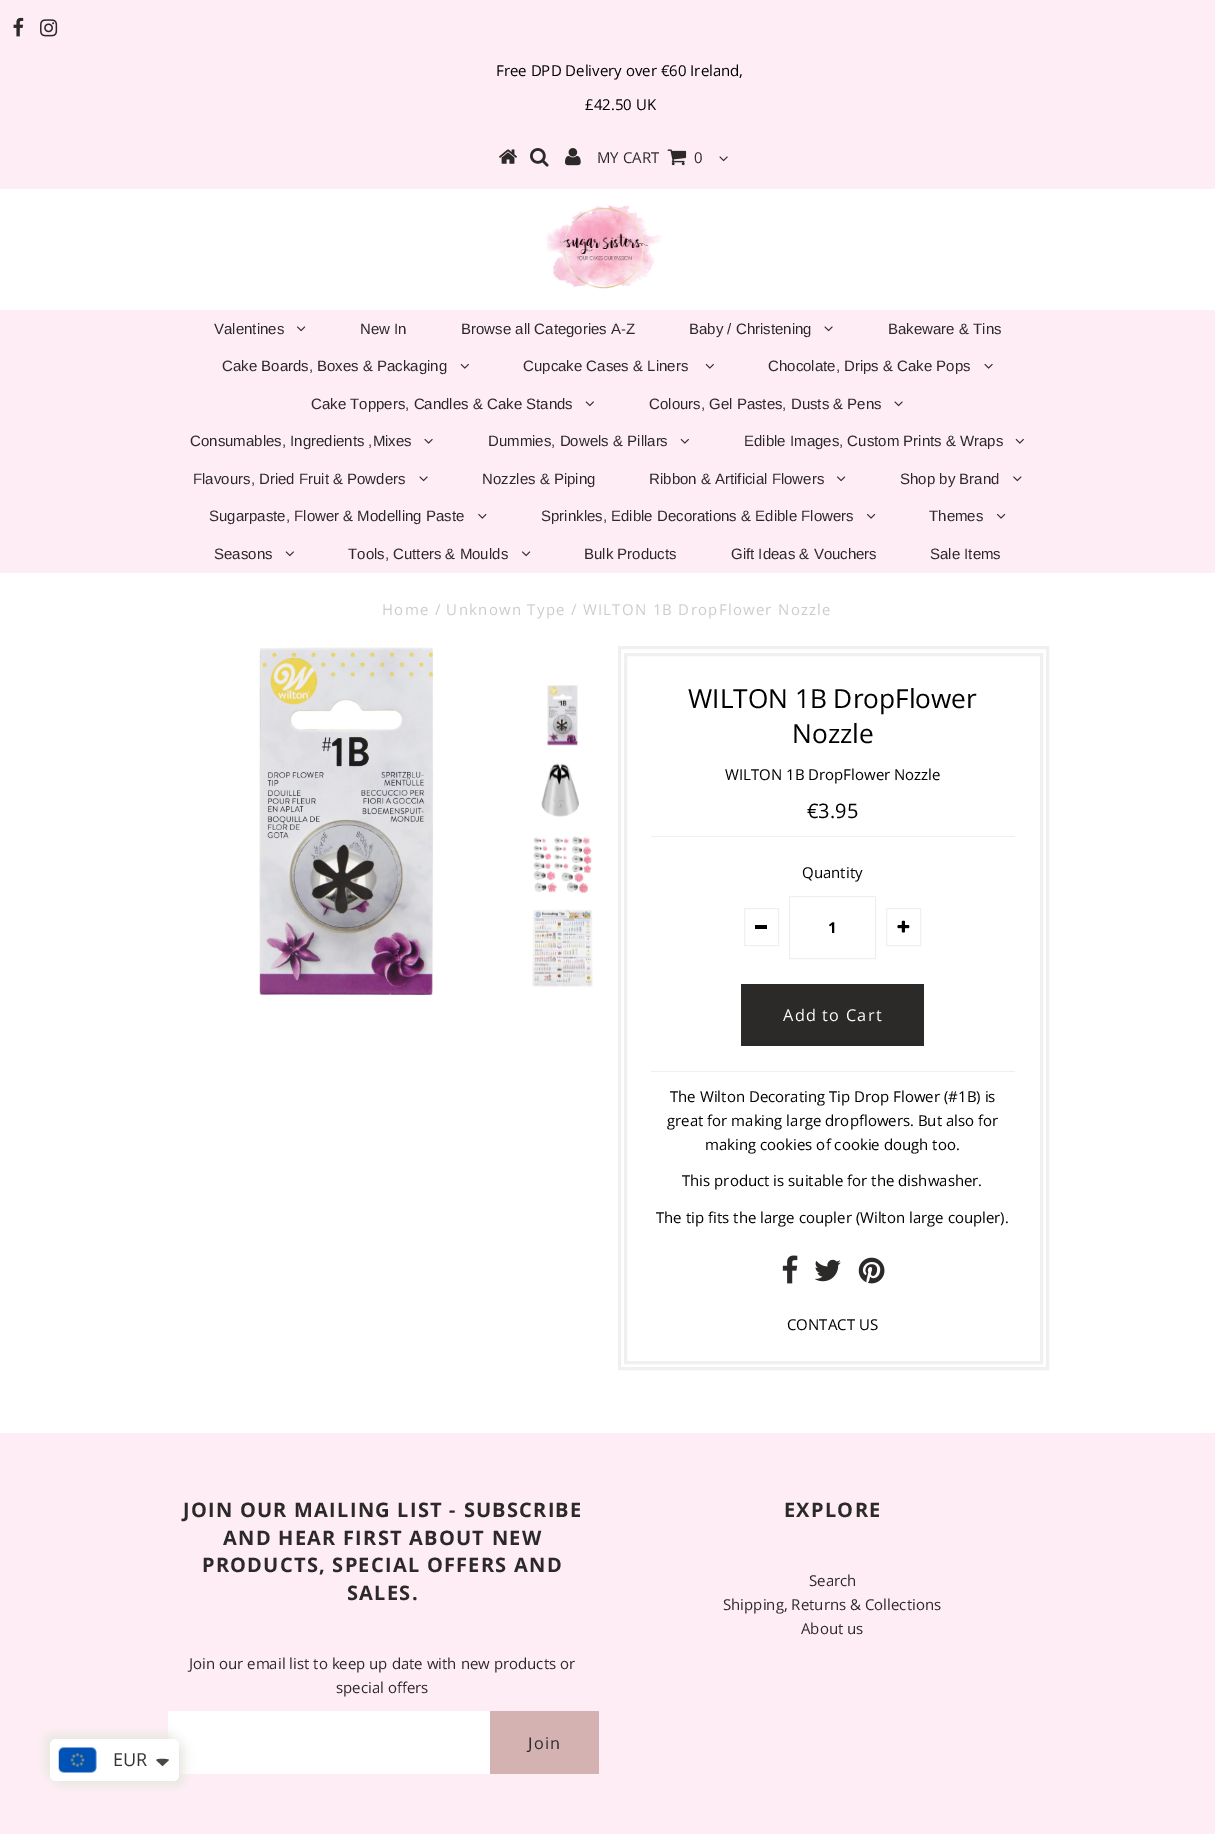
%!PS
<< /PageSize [1215 1834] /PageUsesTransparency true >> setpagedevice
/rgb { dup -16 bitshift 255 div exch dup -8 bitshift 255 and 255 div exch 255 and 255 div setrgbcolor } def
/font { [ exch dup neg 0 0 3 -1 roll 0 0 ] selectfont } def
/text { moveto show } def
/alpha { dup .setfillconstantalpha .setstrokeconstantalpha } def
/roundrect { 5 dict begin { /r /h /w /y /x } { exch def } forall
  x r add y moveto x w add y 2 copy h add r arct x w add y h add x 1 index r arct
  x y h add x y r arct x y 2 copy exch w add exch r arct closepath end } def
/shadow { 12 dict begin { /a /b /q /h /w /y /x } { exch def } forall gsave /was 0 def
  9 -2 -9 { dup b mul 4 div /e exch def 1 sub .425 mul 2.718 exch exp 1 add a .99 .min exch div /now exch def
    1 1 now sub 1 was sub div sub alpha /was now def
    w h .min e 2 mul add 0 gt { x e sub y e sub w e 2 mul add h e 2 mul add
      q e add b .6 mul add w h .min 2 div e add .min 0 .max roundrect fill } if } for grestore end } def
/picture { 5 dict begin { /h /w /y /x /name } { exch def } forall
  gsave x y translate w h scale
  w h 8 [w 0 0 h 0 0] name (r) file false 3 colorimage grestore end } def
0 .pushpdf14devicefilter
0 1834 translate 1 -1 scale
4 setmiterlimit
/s1 { /OpenSans-Regular 15 font 16#000000 rgb } def
/s2 { /OpenSans-Regular 15 font 16#2C2929 rgb } def
/s3 { /LiberationSans-Regular 15 font 16#2C2929 rgb } def
/s4 { /OpenSans-Regular 26.25 font 16#000000 rgb } def
/s5 { /OpenSans-Regular 20 font 16#000000 rgb } def
/s6 { /OpenSans-Bold 15 font 16#000000 rgb } def
/s7 { /OpenSans-Regular 18 font 16#333333 rgb } def
16#FFFFFF rgb
0 0 1215 1834 rectfill
16#FFEDF6 rgb
0 0 1215 189 rectfill
(pic1.raw) 13 17 11 20 picture
(pic2.raw) 40 19 18 18 picture
s1
(Free DPD Delivery over €60 Ireland,) 496 76 text
(£42.50 UK) 585 110 text
(pic3.raw) 499 149 18 15 picture
(pic4.raw) 530 148 19 19 picture
(pic5.raw) 565 148 16 18 picture
s2
(MY CART) 597 163 text
(pic6.raw) 667 149 20 17 picture
(0) 694 163 text
(pic7.raw) 719 156 9 6 picture
(pic8.raw) 546 205 116 84 picture
16#FFEDF6 rgb
0 310 1215 263 rectfill
s3
(Valentines) 214 334 text
(pic9.raw) 297 326 9 6 picture
(New In) 360 334 text
(Browse all Categories A-Z) 461 334 text
(Baby / Christening) 689 334 text
(pic7.raw) 824 326 9 6 picture
(Bakeware & Tins) 888 334 text
(Cake Boards, Boxes & Packaging) 222 371 text
(pic10.raw) 460 363 9 6 picture
(Cupcake Cases & Liners) 523 371 text
(pic10.raw) 705 363 9 6 picture
(Chocolate, Drips & Cake Pops) 768 371 text
(pic11.raw) 984 363 9 6 picture
(Cake Toppers, Candles & Cake Stands) 311 409 text
(pic12.raw) 585 401 9 6 picture
(Colours, Gel Pastes, Dusts & Pens) 649 409 text
(pic7.raw) 894 401 9 6 picture
(Consumables, Ingredients ,Mixes) 190 446 text
(pic11.raw) 424 438 9 6 picture
(Dummies, Dowels & Pillars) 488 446 text
(pic10.raw) 680 438 9 6 picture
(Edible Images, Custom Prints & Wraps) 744 446 text
(pic10.raw) 1015 438 9 6 picture
(Flavours, Dried Fruit & Powders) 193 484 text
(pic7.raw) 419 476 9 6 picture
(Nozzles & Piping) 482 484 text
(Ribbon & Artificial Flowers) 649 484 text
(pic9.raw) 837 476 9 6 picture
(Shop by Brand) 900 484 text
(pic13.raw) 1013 476 9 6 picture
(Sugarpaste, Flower & Modelling Paste) 209 521 text
(pic14.raw) 478 513 9 6 picture
(Sprinkles, Edible Decorations & Edible Flowers) 541 521 text
(pic15.raw) 866 513 10 6 picture
(Themes) 929 521 text
(pic15.raw) 996 513 10 6 picture
(Seasons) 214 559 text
(pic12.raw) 285 551 9 6 picture
(Tools, Cutters & Moulds) 348 559 text
(pic9.raw) 522 551 9 6 picture
(Bulk Products) 584 559 text
(Gift Ideas & Vouchers) 731 559 text
(Sale Items) 930 559 text
/OpenSans-Regular 15 font
16#CCCCCC rgb
382 615 moveto 1.25 0 (Home / Unknown Type / WILTON 1B DropFlower Nozzle) ashow
(pic16.raw) 259 647 176 350 picture
(pic17.raw) 547 685 31 61 picture
(pic18.raw) 541 763 38 54 picture
(pic19.raw) 533 836 59 58 picture
(pic20.raw) 532 909 61 78 picture
16#F0F0F0 rgb
3 setlinewidth
619.5 647.5 428 721 rectstroke
625.5 654.5 416 708 rectstroke
s4
(WILTON 1B DropFlower) 688 708 text
(Nozzle) 792 743 text
s1
(WILTON 1B DropFlower Nozzle) 725 780 text
s5
(€3.95) 807 818 text
16#F0F0F0 rgb
651 836 364 1 rectfill
651 1071 364 1 rectfill
s1
(Quantity) 802 878 text
16#F0F0F0 rgb
1 setlinewidth
744.5 908.5 34 37 rectstroke
16#000000 rgb
755 925 12 4 rectfill
16#F0F0F0 rgb
789.5 896.5 86 62 rectstroke
s6
(1) 828 933 text
16#F0F0F0 rgb
886.5 908.5 34 37 rectstroke
(pic21.raw) 897 920 13 13 picture
16#2C2929 rgb
741 984 183 62 rectfill
/OpenSans-Regular 16.25 font
16#FFFFFF rgb
783 1021 moveto 1.25 0 (Add to Cart) ashow
s1
(The Wilton Decorating Tip Drop Flower \(#1B\) is) 670 1102 text
(great for making large dropflowers. But also for) 667 1126 text
(making cookies of cookie dough too.) 705 1150 text
(This product is suitable for the dishwasher.) 682 1186 text
(The tip fits the large coupler \(Wilton large coupler\).) 656 1223 text
(pic22.raw) 782 1255 16 29 picture
(pic23.raw) 814 1259 27 23 picture
(pic24.raw) 858 1257 27 27 picture
(CONTACT US) 787 1330 text
16#FFEDF6 rgb
0 1433 1215 401 rectfill
/OpenSans-Bold 20 font
16#2C2929 rgb
183 1517 moveto 1.25 0 (JOIN OUR MAILING LIST - SUBSCRIBE) ashow
223 1545 moveto 1.25 0 (AND HEAR FIRST ABOUT NEW) ashow
202 1572 moveto 1.25 0 (PRODUCTS, SPECIAL OFFERS AND) ashow
347 1600 moveto 1.25 0 (SALES.) ashow
s2
(Join our email list to keep up date with new products or) 189 1669 text
(special offers) 336 1693 text
16#FFFFFF rgb
168 1711 322 63 rectfill
16#D4B2B2 rgb
490 1711 109 63 rectfill
/OpenSans-Regular 16.25 font
16#2C2929 rgb
528 1749 moveto 1.25 0 (Join) ashow
/OpenSans-Bold 20 font
784 1517 moveto 1.25 0 (EXPLORE) ashow
s2
(Search) 809 1586 text
(Shipping, Returns & Collections) 723 1610 text
(About us) 801 1634 text
16#E8E8E2 rgb
45 1734 129 42 6 5.5 1 shadow
55 1744 129 42 6 5.5 1 shadow
16#FFFFFF rgb
50 1739 129 42 6 roundrect fill
(pic25.raw) 58 1747 39 26 picture
s7
(EUR) 113 1766 text
16#474942 rgb
159 1759 moveto 161.5 1759 167 1758.5 169 1760 curveto 162.5 1766 lineto 156 1760 lineto 157 1759.5 158 1759 159 1759 curveto closepath fill
.poppdf14devicefilter showpage
